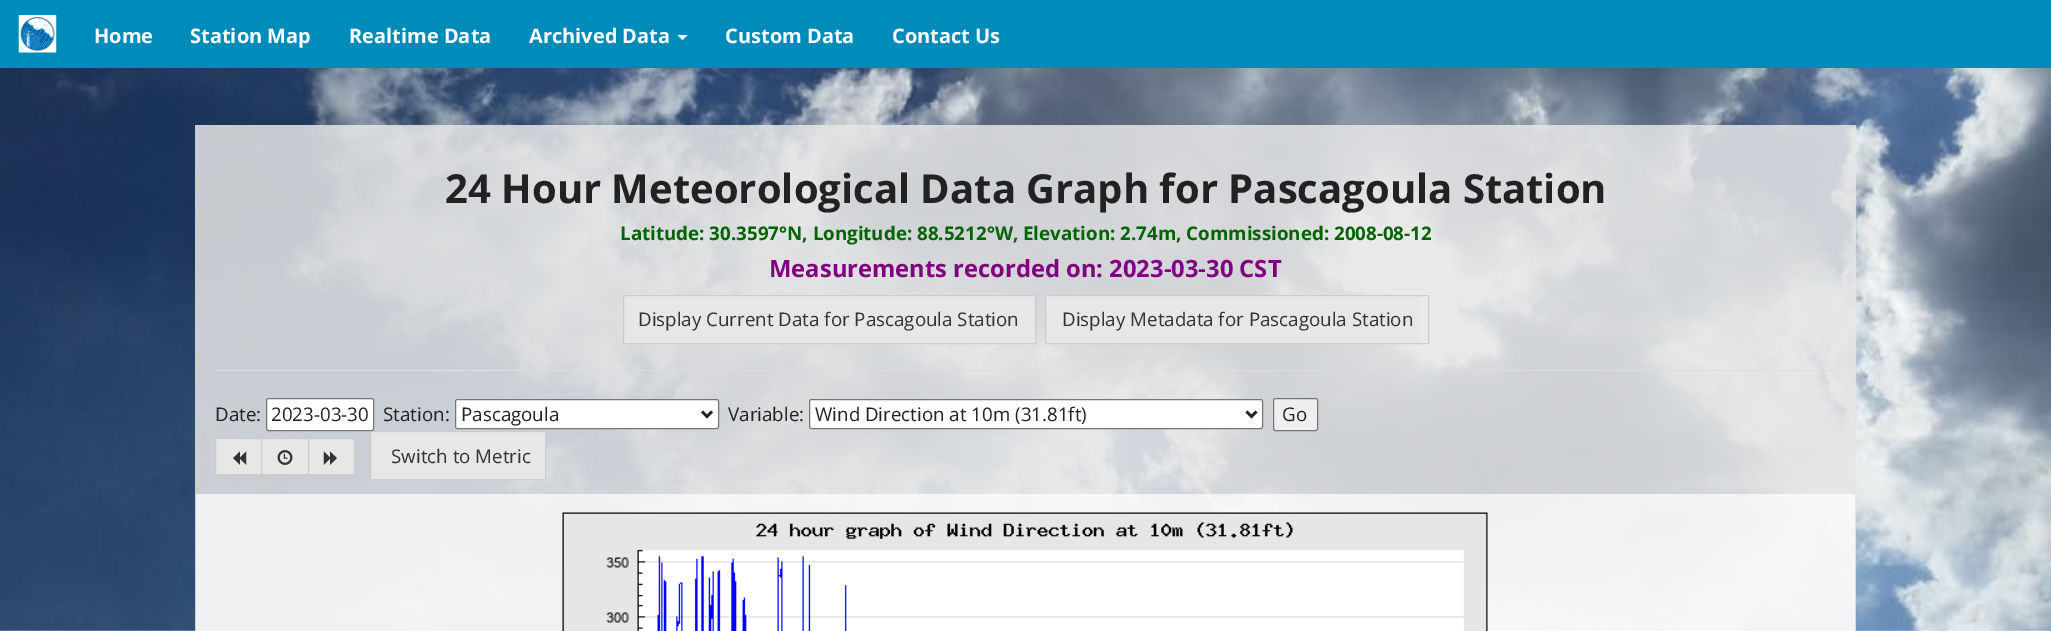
%!PS
<< /PageSize [2051 631] /PageUsesTransparency true >> setpagedevice
/rgb { dup -16 bitshift 255 div exch dup -8 bitshift 255 and 255 div exch 255 and 255 div setrgbcolor } def
/font { [ exch dup neg 0 0 3 -1 roll 0 0 ] selectfont } def
/text { moveto show } def
/alpha { dup .setfillconstantalpha .setstrokeconstantalpha } def
/roundrect { 5 dict begin { /r /h /w /y /x } { exch def } forall
  x r add y moveto x w add y 2 copy h add r arct x w add y h add x 1 index r arct
  x y h add x y r arct x y 2 copy exch w add exch r arct closepath end } def
/picture { 5 dict begin { /h /w /y /x /name } { exch def } forall
  gsave x y translate w h scale
  w h 8 [w 0 0 h 0 0] name (r) file false 3 colorimage grestore end } def
0 .pushpdf14devicefilter
0 631 translate 1 -1 scale
4 setmiterlimit
/s1 { /OpenSans-Bold 20 font 16#FFFFFF rgb } def
/s2 { /OpenSans-Bold 40 font 16#222222 rgb } def
/s3 { /OpenSans-Bold 18.75 font 16#006400 rgb } def
/s4 { /OpenSans-Bold 23.75 font 16#800080 rgb } def
/s5 { /OpenSans-Regular 18.75 font 16#333333 rgb } def
/s6 { /OpenSans-Regular 18.75 font 16#222222 rgb } def
16#FFFFFF rgb
0 0 2051 631 rectfill
(pic1.raw) 0 68 2051 563 picture
16#008CBA rgb
0 0 2051 68 rectfill
(pic2.raw) 18 15 39 38 picture
s1
(Home) 94 43 text
(Station Map) 190 43 text
(Realtime Data) 349 43 text
(Archived Data) 529 43 text
677.5 35 moveto 687.5 35 lineto 682.5 40 lineto closepath fill
(Custom Data) 725 43 text
(Contact Us) 892 43 text
0.85 alpha
16#E6E6E6 rgb
195 125 1661 506 rectfill
1 alpha
s2
(24 Hour Meteorological Data Graph for Pascagoula Station) 445 203 text
s3
(Latitude: 30.3597°N, Longitude: 88.5212°W, Elevation: 2.74m, Commissioned: 2008-08-12) 620 240 text
s4
(Measurements recorded on: 2023-03-30 CST) 769 277 text
16#E7E7E7 rgb
623.5 295.5 moveto 1035.5 295.5 lineto 1035.5 343.5 lineto 623.5 343.5 lineto closepath gsave fill grestore
16#CCCCCC rgb
stroke
s5
(Display Current Data for Pascagoula Station) 638 326 text
16#E7E7E7 rgb
1046 296 372 47 rectfill
16#CCCCCC rgb
1045.5 295.5 383 48 rectstroke
s5
(Display Metadata for Pascagoula Station) 1062 326 text
16#DDDDDD rgb
215 370 1621 1 rectfill
s6
(Date:) 215 421 text
16#FFFFFF rgb
266.5 398.5 107 32 2 roundrect gsave fill grestore
16#767676 rgb
stroke
s6
(2023-03-30) 271 421 text
(Station:) 383 421 text
16#FFFFFF rgb
455.5 399.5 263 29 2 roundrect gsave fill grestore
16#767676 rgb
stroke
16#222222 rgb
2.5 setlinewidth
702 411.5 moveto 707 416.5 lineto 712 411.5 lineto stroke
(Pascagoula) 461 421 text
(Variable:) 728 421 text
16#FFFFFF rgb
809.5 399.5 453 29 2 roundrect gsave fill grestore
16#767676 rgb
1 setlinewidth
stroke
16#222222 rgb
2.5 setlinewidth
1246.5 411.5 moveto 1251.5 416.5 lineto 1256.5 411.5 lineto stroke
(Wind Direction at 10m \(31.81ft\)) 815 421 text
16#EFEFEF rgb
1273.5 398.5 44 32 2 roundrect gsave fill grestore
16#767676 rgb
1 setlinewidth
stroke
s6
(Go) 1282 421 text
16#E7E7E7 rgb
216 439 45 35 rectfill
16#CCCCCC rgb
215.5 438.5 47 36 rectstroke
(pic3.raw) 233 451 14 14 picture
16#E7E7E7 rgb
261.5 438.5 moveto 308.5 438.5 lineto 308.5 474.5 lineto 261.5 474.5 lineto closepath gsave fill grestore
16#CCCCCC rgb
stroke
(pic4.raw) 277 450 16 15 picture
16#E7E7E7 rgb
308.5 438.5 moveto 354.5 438.5 lineto 354.5 474.5 lineto 308.5 474.5 lineto closepath gsave fill grestore
16#CCCCCC rgb
stroke
(pic5.raw) 323 451 14 14 picture
16#E7E7E7 rgb
370.5 431.5 moveto 545.5 431.5 lineto 545.5 479.5 lineto 370.5 479.5 lineto closepath gsave fill grestore
16#CCCCCC rgb
stroke
s5
(Switch to Metric) 391 463 text
0.7 alpha
16#FFFFFF rgb
196 494 1659 137 rectfill
1 alpha
(pic6.raw) 562 512 926 119 picture
.poppdf14devicefilter showpage
